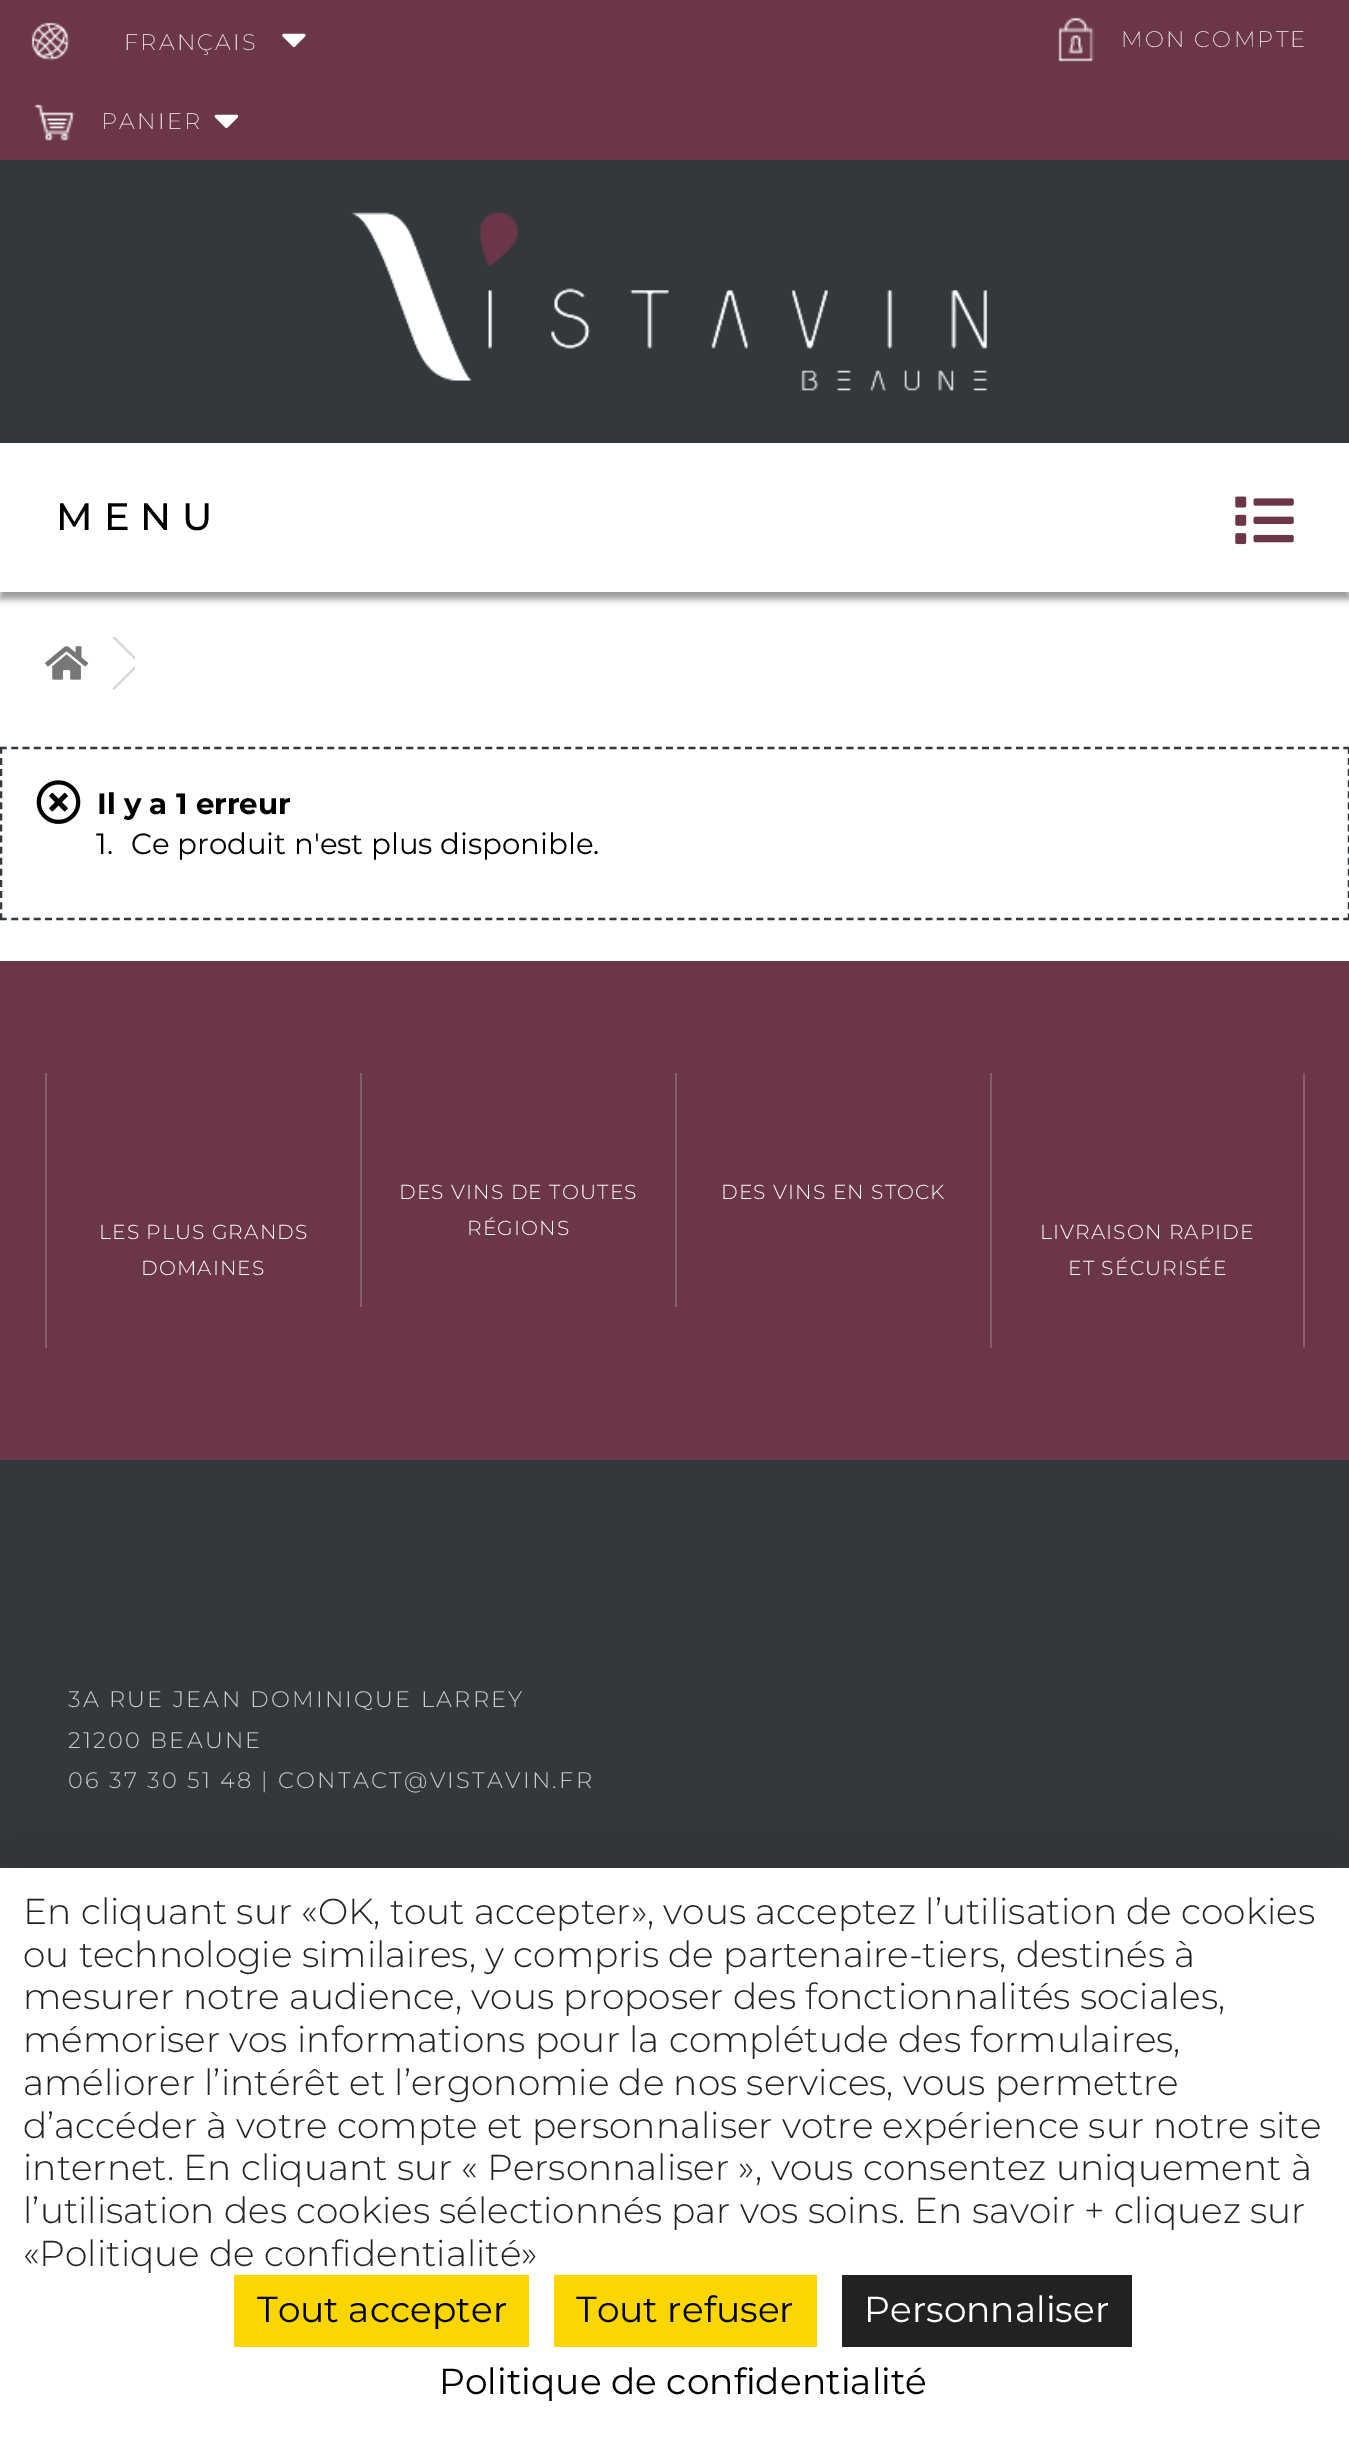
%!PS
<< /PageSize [1349 2440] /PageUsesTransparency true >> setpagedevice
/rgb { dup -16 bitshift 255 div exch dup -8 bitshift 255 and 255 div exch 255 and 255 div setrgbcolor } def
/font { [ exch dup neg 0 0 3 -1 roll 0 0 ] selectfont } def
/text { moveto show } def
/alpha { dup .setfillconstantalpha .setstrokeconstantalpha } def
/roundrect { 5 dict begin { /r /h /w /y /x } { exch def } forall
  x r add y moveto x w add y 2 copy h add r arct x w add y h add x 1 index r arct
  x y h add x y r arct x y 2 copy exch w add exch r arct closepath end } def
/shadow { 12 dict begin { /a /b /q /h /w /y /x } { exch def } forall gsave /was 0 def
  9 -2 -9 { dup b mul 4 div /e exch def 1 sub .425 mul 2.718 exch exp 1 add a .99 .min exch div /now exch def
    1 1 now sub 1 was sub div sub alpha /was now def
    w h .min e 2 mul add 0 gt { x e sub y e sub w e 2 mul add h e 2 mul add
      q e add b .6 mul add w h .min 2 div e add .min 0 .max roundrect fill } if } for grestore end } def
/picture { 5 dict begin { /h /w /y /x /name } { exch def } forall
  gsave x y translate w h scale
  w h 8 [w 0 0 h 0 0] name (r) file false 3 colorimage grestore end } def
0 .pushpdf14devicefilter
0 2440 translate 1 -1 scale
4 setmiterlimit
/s1 { /Montserrat-Bold 29.25 font 16#000000 rgb } def
/s2 { /Montserrat-Regular 29.25 font 16#000000 rgb } def
/s3 { /Montserrat-Light 36 font 16#222222 rgb } def
/s4 { /Montserrat-Regular 36 font 16#000000 rgb } def
/s5 { /Montserrat-Regular 36 font 16#FFFFFF rgb } def
16#FFFFFF rgb
0 0 1349 2440 rectfill
16#6B3648 rgb
0 0 1349 160 rectfill
(pic1.raw) 31 22 39 39 picture
/Montserrat-ExtraLight 22.5 font
16#FFFFFF rgb
124 50 moveto 2.25 0 (FRANÇAIS) ashow
(pic2.raw) 282 33 24 15 picture
(pic3.raw) 1058 17 37 45 picture
1121 47 moveto 2.25 0 (MON COMPTE) ashow
(pic4.raw) 33 104 42 37 picture
101 129 moveto 2.25 0 (PANIER) ashow
(pic5.raw) 214 114 25 15 picture
16#32383B rgb
0 160 1349 283 rectfill
(pic6.raw) 351 212 637 179 picture
16#000000 rgb
0 450 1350 149 0 3.5 0.4 shadow
16#FFFFFF rgb
0 443 1349 149 rectfill
/Montserrat-Medium 38.25 font
16#000000 rgb
56 530 moveto 11 0 (MENU) ashow
(pic7.raw) 1235 496 59 49 picture
(pic8.raw) 45 646 44 34 picture
16#D6D4D4 rgb
135 660 moveto 112.5 637.5 lineto 113 637 lineto 115 637 lineto 135 657 lineto closepath 135 666 moveto 135 669 lineto 114 690 lineto 112.5 688.5 lineto closepath fill
16#32383B rgb
2.2 setlinewidth
[6.75 4.54] 0 setdash
0 748 moveto 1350 748 lineto stroke
[6.75 4.34] 0 setdash
1349 747 moveto 1349 920 lineto stroke
[6.75 4.54] 0 setdash
0 919 moveto 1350 919 lineto stroke
[6.75 4.34] 0 setdash
1 747 moveto 1 920 lineto stroke
(pic9.raw) 36 780 45 44 picture
s1
(Il y a 1 erreur) 97 814 text
s2
(1.) 96 854 text
(Ce produit n'est plus disponible.) 131 854 text
16#6B3648 rgb
0 961 1349 499 rectfill
16#895E67 rgb
360 1073 2 234 rectfill
/Montserrat-Light 20.25 font
16#FFFFFF rgb
399 1199 moveto 1.1 0 (DES VINS DE TOUTES) ashow
467 1235 moveto 1.1 0 (RÉGIONS) ashow
16#895E67 rgb
675 1073 2 234 rectfill
16#FFFFFF rgb
721 1199 moveto 1.1 0 (DES VINS EN STOCK) ashow
16#895E67 rgb
45 1073 2 275 rectfill
16#FFFFFF rgb
99 1239 moveto 1.1 0 (LES PLUS GRANDS) ashow
141 1275 moveto 1.1 0 (DOMAINES) ashow
16#895E67 rgb
1303 1073 2 275 rectfill
990 1073 2 275 rectfill
16#FFFFFF rgb
1040 1239 moveto 1.1 0 (LIVRAISON RAPIDE) ashow
1068 1275 moveto 1.1 0 (ET SÉCURISÉE) ashow
16#32383B rgb
0 1460 1349 408 rectfill
/Montserrat-Light 22.5 font
16#CCCCCC rgb
68 1707 moveto 2.25 0 (3A RUE JEAN DOMINIQUE LARREY) ashow
68 1748 moveto 2.25 0 (21200 BEAUNE) ashow
68 1788 moveto 2.25 0 (06 37 30 51 48 | CONTACT@VISTAVIN.FR) ashow
16#000000 rgb
0 1913 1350 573 0 67.5 0.25 shadow
16#FFFFFF rgb
0 1868 1349 572 rectfill
s3
(En cliquant sur «OK, tout accepter», vous acceptez l’utilisation de cookies) 23 1924 text
(ou technologie similaires, y compris de partenaire-tiers, destinés à) 23 1967 text
(mesurer notre audience, vous proposer des fonctionnalités sociales,) 23 2009 text
(mémoriser vos informations pour la complétude des formulaires,) 23 2052 text
(améliorer l’intérêt et l’ergonomie de nos services, vous permettre) 23 2095 text
(d’accéder à votre compte et personnaliser votre expérience sur notre site) 23 2138 text
(internet. En cliquant sur « Personnaliser », vous consentez uniquement à) 23 2180 text
(l’utilisation des cookies sélectionnés par vos soins. En savoir + cliquez sur) 23 2223 text
(«Politique de confidentialité») 23 2266 text
16#FBD600 rgb
234 2275 295 72 rectfill
s4
(Tout accepter) 257 2322 text
16#FBD600 rgb
554 2275 263 72 rectfill
s4
(Tout refuser) 576 2322 text
16#222222 rgb
842 2275 290 72 rectfill
s5
(Personnaliser) 864 2322 text
s4
(Politique de confidentialité) 439 2394 text
.poppdf14devicefilter showpage
